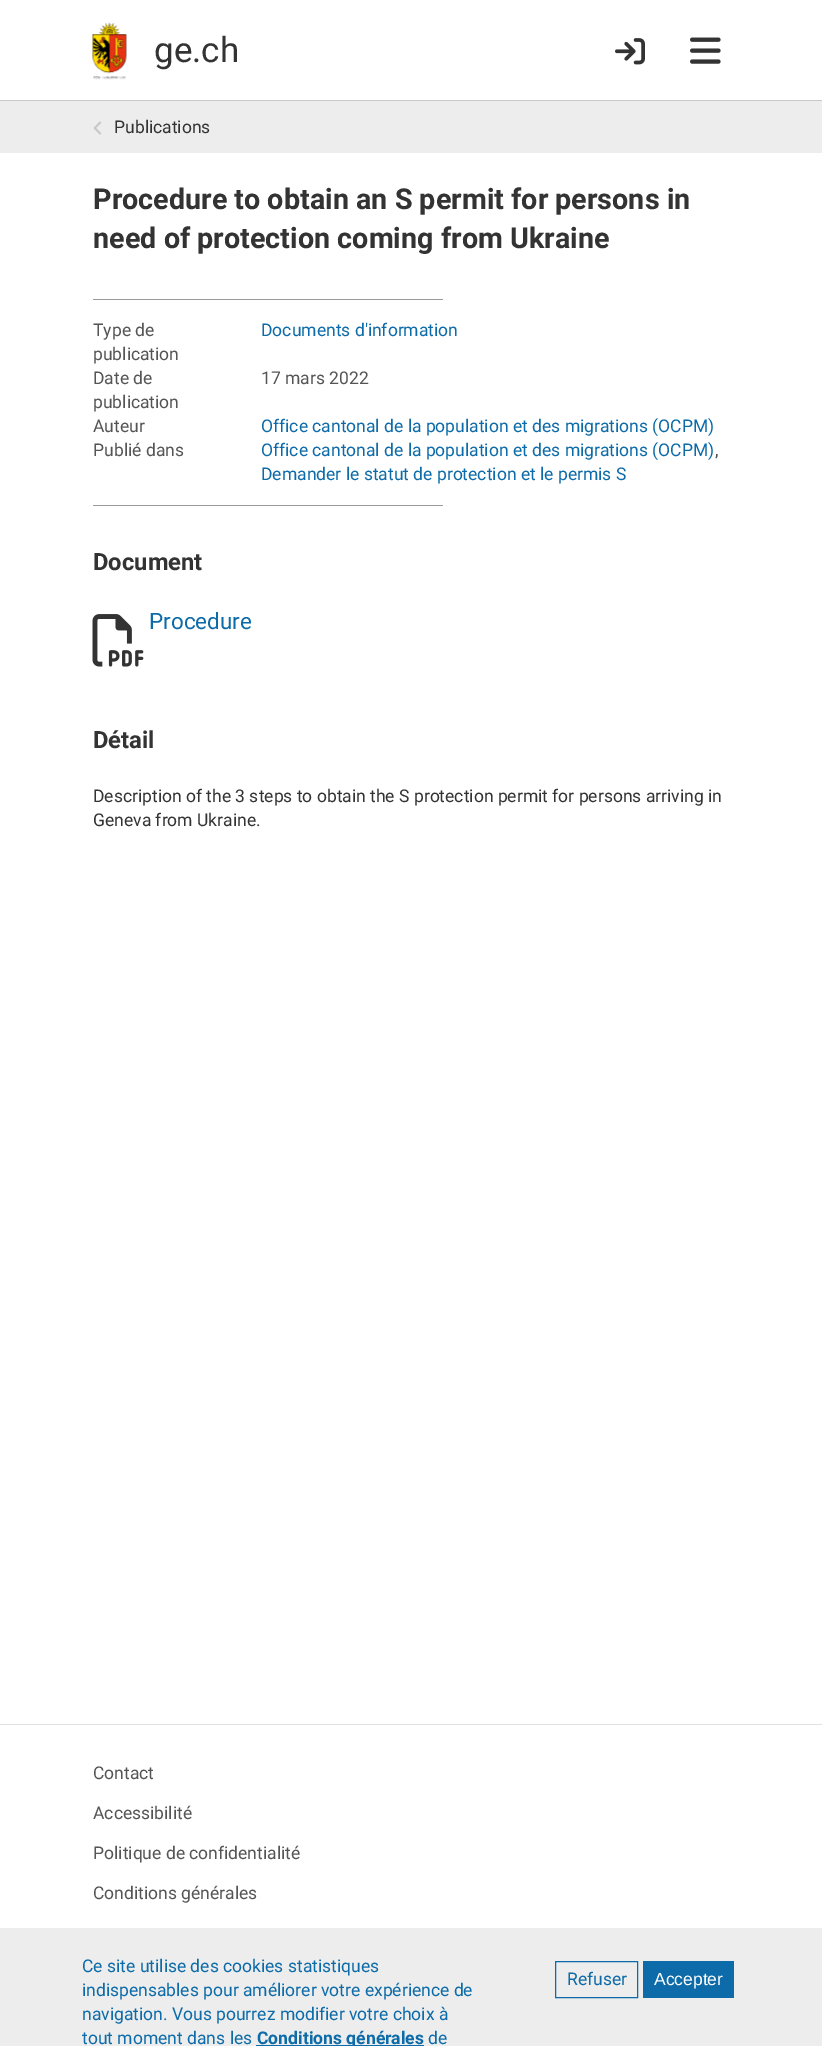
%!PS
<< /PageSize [822 2046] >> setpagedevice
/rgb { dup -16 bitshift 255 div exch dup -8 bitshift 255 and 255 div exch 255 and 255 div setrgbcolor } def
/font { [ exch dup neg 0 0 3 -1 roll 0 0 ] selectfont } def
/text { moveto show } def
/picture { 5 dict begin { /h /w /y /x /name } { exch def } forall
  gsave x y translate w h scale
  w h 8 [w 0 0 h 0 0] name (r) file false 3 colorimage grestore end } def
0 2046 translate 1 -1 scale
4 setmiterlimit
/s1 { /Roboto-Regular 35 font 16#333333 rgb } def
/s2 { /Roboto-Regular 17.5 font 16#333333 rgb } def
/s3 { /Roboto-Bold 28.75 font 16#333333 rgb } def
/s4 { /Roboto-Regular 17.5 font 16#555555 rgb } def
/s5 { /Roboto-Regular 17.5 font 16#0C6BA8 rgb } def
/s6 { /Roboto-Bold 23.75 font 16#333333 rgb } def
/s7 { /Roboto-Regular 22.5 font 16#0C6BA8 rgb } def
/s8 { /Roboto-Bold 17.5 font 16#0C6BA8 rgb } def
/s9 { /LiberationSans-Regular 17.5 font 16#FFFFFF rgb } def
16#FFFFFF rgb
0 0 822 2046 rectfill
16#C9C9C9 rgb
0 100 822 1 rectfill
(pic1.raw) 92 22 35 58 picture
s1
(ge.ch) 154 62 text
(pic2.raw) 615 38 30 27 picture
(pic3.raw) 690 37 31 27 picture
16#EDEDED rgb
0 101 822 52 rectfill
(pic4.raw) 93 121 9 14 picture
s2
(Publications) 114 133 text
s3
(Procedure to obtain an S permit for persons in) 93 209 text
(need of protection coming from Ukraine) 93 248 text
16#999999 rgb
93 299 350 1 rectfill
s4
(Type de) 93 336 text
(publication) 93 360 text
s5
(Documents d'information) 261 336 text
s4
(Date de) 93 384 text
(publication) 93 408 text
(17 mars 2022) 261 384 text
(Auteur) 93 432 text
s5
(Office cantonal de la population et des migrations \(OCPM\)) 261 432 text
s4
(Publié dans) 93 456 text
s5
(Office cantonal de la population et des migrations \(OCPM\)) 261 456 text
s4
(,) 715 456 text
s5
(Demander le statut de protection et le permis S) 261 480 text
16#999999 rgb
93 505 350 1 rectfill
s6
(Document) 93 570 text
(pic5.raw) 92 614 52 53 picture
s7
(Procedure) 149 629 text
s6
(Détail) 93 748 text
s2
(Description of the 3 steps to obtain the S protection permit for persons arriving in) 93 802 text
(Geneva from Ukraine.) 93 826 text
16#E1E1E1 rgb
0 1724 822 1 rectfill
s4
(Contact) 93 1779 text
(Accessibilité) 93 1819 text
(Politique de confidentialité) 93 1859 text
(Conditions générales) 93 1899 text
16#EDEDED rgb
0 1928 822 118 rectfill
s5
(Ce site utilise des cookies statistiques) 82 1972 text
(indispensables pour améliorer votre expérience de) 82 1996 text
(navigation. Vous pourrez modifier votre choix à) 82 2020 text
(tout moment dans les) 82 2044 text
256 2045 168 1 rectfill
s8
(Conditions générales) 257 2044 text
s5
(de) 428 2044 text
555.5 1961.5 82 36 rectstroke
(Refuser) 567 1985 text
643 1961 91 37 rectfill
s9
(Accepter) 654 1985 text
showpage
